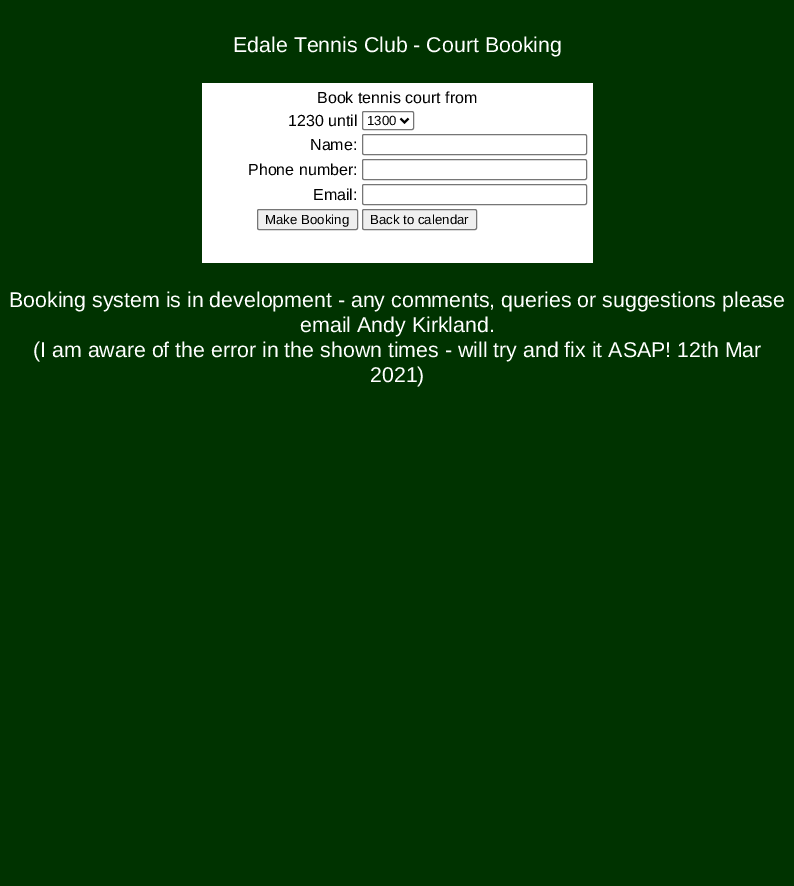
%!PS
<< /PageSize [794 886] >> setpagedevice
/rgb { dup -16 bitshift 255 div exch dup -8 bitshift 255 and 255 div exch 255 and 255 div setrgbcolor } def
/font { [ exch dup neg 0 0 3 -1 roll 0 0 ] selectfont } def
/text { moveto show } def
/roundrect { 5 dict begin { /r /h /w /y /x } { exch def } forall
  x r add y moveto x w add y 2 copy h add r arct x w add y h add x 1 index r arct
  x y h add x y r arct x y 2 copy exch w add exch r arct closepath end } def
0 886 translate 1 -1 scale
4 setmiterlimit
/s1 { /LiberationSans-Regular 21.35 font 16#FFFFFF rgb } def
/s2 { /LiberationSans-Regular 16 font 16#000000 rgb } def
/s3 { /LiberationSans-Regular 13.25 font 16#000000 rgb } def
16#003300 rgb
0 0 794 886 rectfill
s1
(Edale Tennis Club - Court Booking) 233 52 text
202 83 391 180 rectfill
s2
(Book tennis court from) 317 103 text
(1230 until) 288 126 text
16#767676 rgb
362.5 111.5 51 18 1.5 roundrect stroke
16#000000 rgb
2 setlinewidth
400.5 118.5 moveto 404.5 122.5 lineto 408.5 118.5 lineto stroke
s3
(1300) 367 125 text
s2
(Name:) 310 150 text
16#767676 rgb
1 setlinewidth
362.5 134.5 224 20 1.5 roundrect stroke
s2
(Phone number:) 248 175 text
16#767676 rgb
362.5 159.5 224 20 1.5 roundrect stroke
s2
(Email:) 313 200 text
16#767676 rgb
362.5 184.5 224 20 1.5 roundrect stroke
16#EFEFEF rgb
257.5 209.5 100 20 1.5 roundrect gsave fill grestore
16#767676 rgb
stroke
s3
(Make Booking) 265 224 text
16#EFEFEF rgb
362.5 209.5 114 20 1.5 roundrect gsave fill grestore
16#767676 rgb
stroke
s3
(Back to calendar) 370 224 text
s1
(Booking system is in development - any comments, queries or suggestions please) 9 307 text
(email Andy Kirkland.) 300 332 text
(\(I am aware of the error in the shown times - will try and fix it ASAP! 12th Mar) 33 357 text
(2021\)) 370 382 text
showpage
